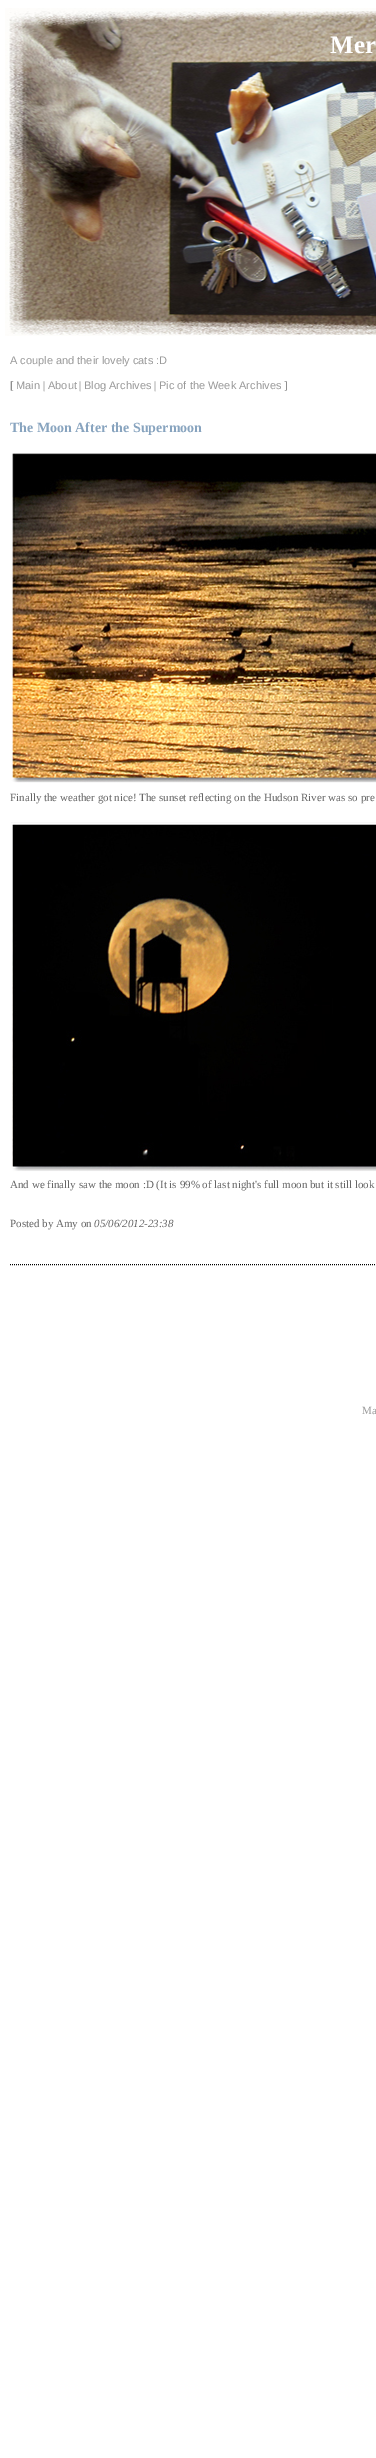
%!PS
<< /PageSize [376 2458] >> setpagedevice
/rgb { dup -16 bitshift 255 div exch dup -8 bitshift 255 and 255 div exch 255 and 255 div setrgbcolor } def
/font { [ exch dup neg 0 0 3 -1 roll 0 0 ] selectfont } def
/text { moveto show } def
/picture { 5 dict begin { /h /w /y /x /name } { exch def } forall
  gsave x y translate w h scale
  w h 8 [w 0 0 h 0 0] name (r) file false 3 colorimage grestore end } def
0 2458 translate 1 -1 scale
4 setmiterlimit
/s1 { /LiberationSerif-Bold 25 font 16#FFFFFF rgb } def
/s2 { /LiberationSans-Regular 11 font 16#999999 rgb } def
/s3 { /LiberationSerif-Regular 11 font 16#666666 rgb } def
/s4 { /LiberationSerif-Bold 14 font 16#88A4BF rgb } def
/s5 { /LiberationSerif-Italic 11 font 16#666666 rgb } def
/s6 { /LiberationSerif-Regular 11 font 16#999999 rgb } def
16#FFFFFF rgb
0 0 376 2458 rectfill
(pic1.raw) 5 8 371 328 picture
s1
(Mer) 330 53 text
s2
(A couple and their lovely cats :D) 10 364 text
s3
([) 10 389 text
s2
(Main) 16 389 text
s3
(|) 43 389 text
s2
(About) 48 389 text
s3
(|) 79 389 text
s2
(Blog Archives) 84 389 text
s3
(|) 154 389 text
s2
(Pic of the Week Archives) 159 389 text
s3
(]) 284 389 text
s4
(The Moon After the Supermoon) 10 432 text
(pic2.raw) 10 453 366 330 picture
s3
(Finally the weather got nice! The sunset reflecting on the Hudson River was so pre) 10 801 text
(pic3.raw) 11 822 365 350 picture
(And we finally saw the moon :D \(It is 99% of last night's full moon but it still look) 10 1188 text
(Posted by Amy on) 10 1227 text
s5
(05/06/2012-23:38) 94 1227 text
16#000000 rgb
[1 1] 0 setdash
10 1264.5 moveto 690 1264.5 lineto stroke
s6
(Ma) 362 1414 text
showpage
